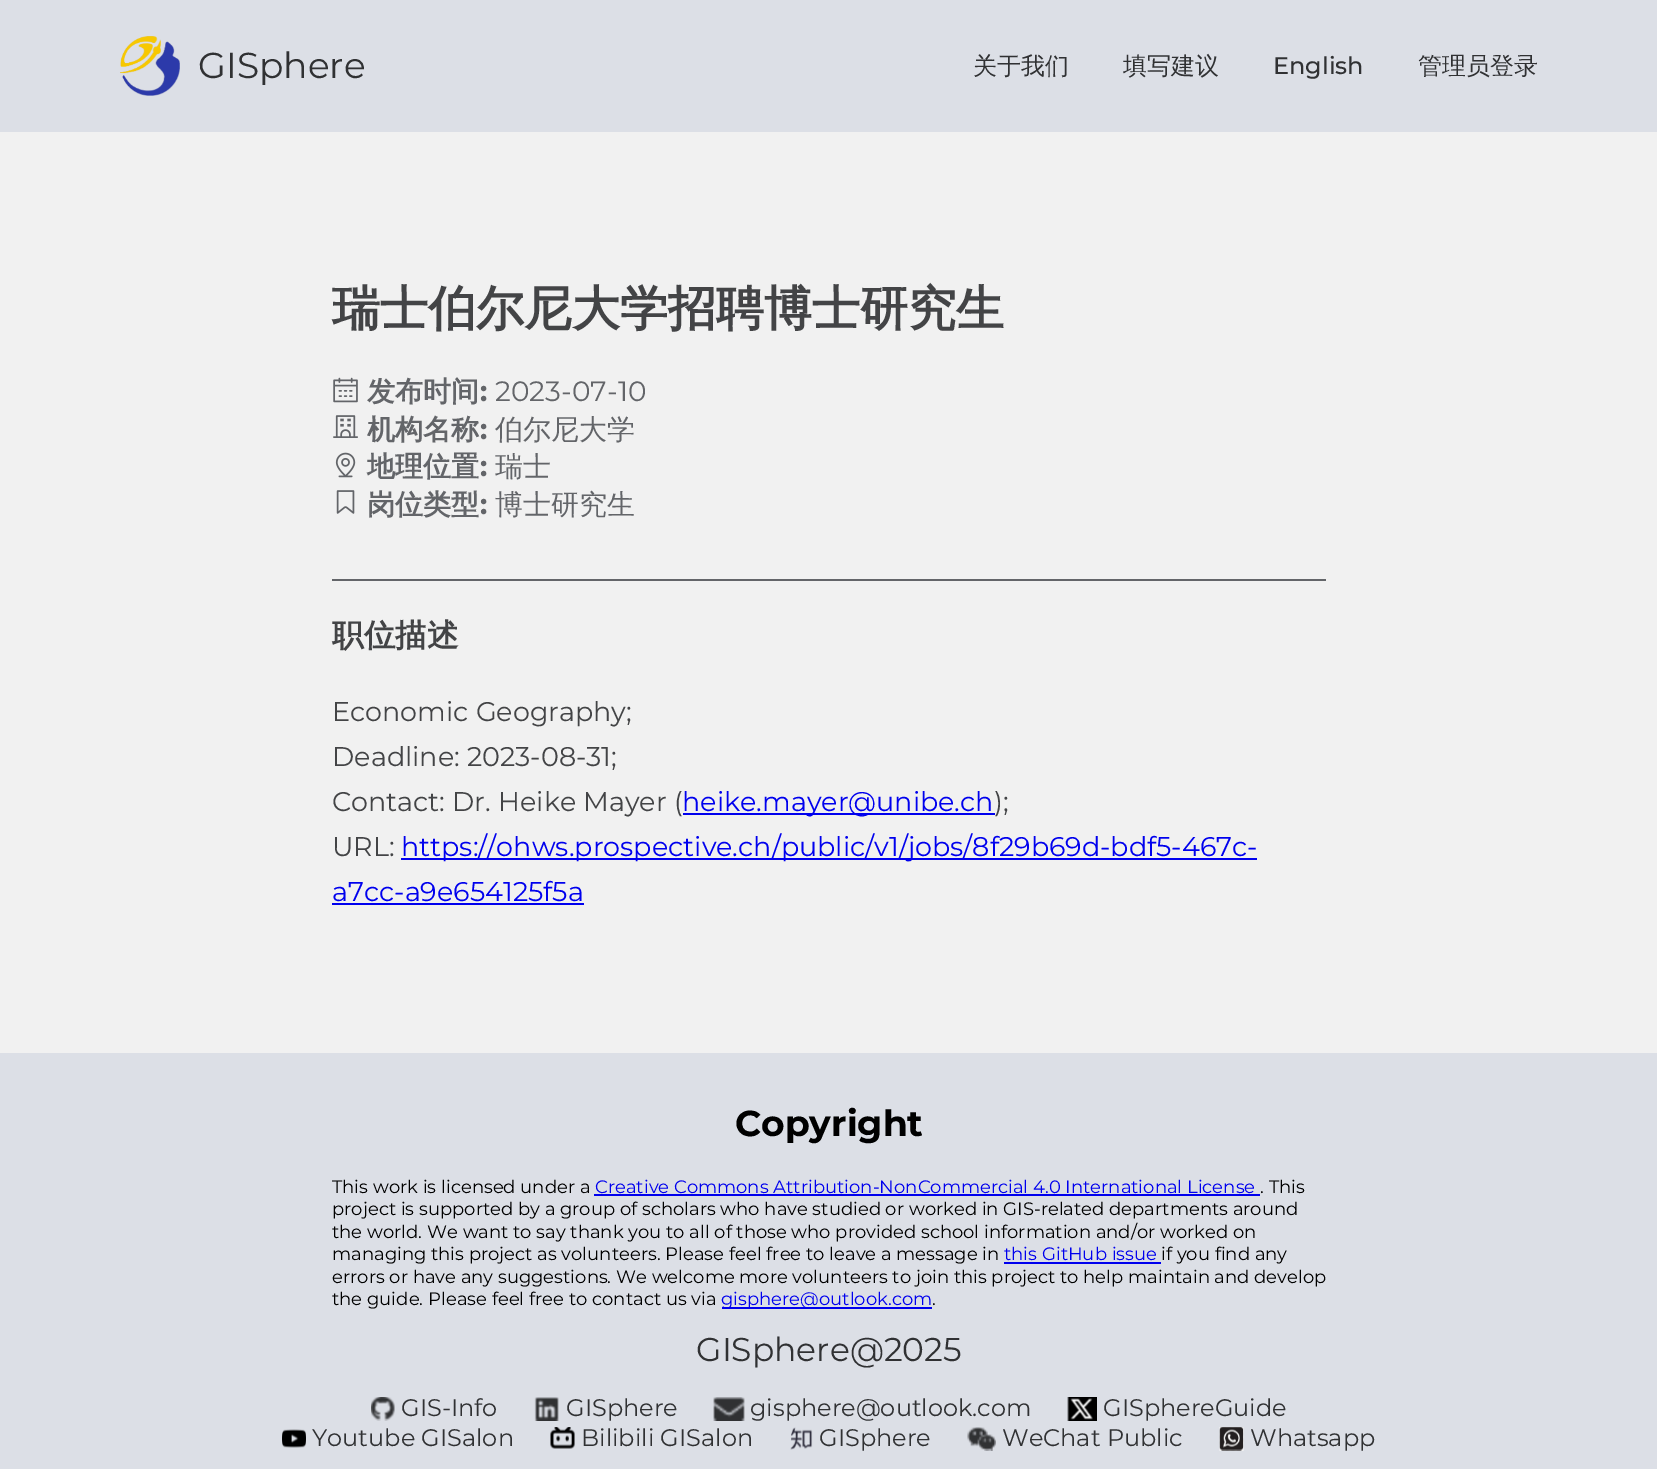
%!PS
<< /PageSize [1657 1469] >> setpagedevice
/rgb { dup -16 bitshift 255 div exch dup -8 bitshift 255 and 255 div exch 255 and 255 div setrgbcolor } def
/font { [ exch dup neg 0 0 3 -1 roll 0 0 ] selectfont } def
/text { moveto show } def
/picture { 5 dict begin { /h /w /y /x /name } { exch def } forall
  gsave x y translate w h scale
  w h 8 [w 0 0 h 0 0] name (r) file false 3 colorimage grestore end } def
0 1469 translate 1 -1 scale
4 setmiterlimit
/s1 { /Montserrat-Regular 36 font 16#303133 rgb } def
/s2 { /WenQuanYiZenHei-Medium 24 font 16#303133 rgb } def
/s3 { /Montserrat-Medium 24 font 16#303133 rgb } def
/s4 { /WenQuanYiZenHei-Bold 48 font 16#434446 rgb } def
/s5 { /WenQuanYiZenHei-Bold 28 font 16#636569 rgb } def
/s6 { /Montserrat-Bold 28 font 16#636569 rgb } def
/s7 { /Montserrat-Regular 28 font 16#636569 rgb } def
/s8 { /WenQuanYiZenHei-Medium 28 font 16#636569 rgb } def
/s9 { /WenQuanYiZenHei-Bold 31.5 font 16#434446 rgb } def
/s10 { /Montserrat-Regular 27 font 16#434446 rgb } def
/s11 { /Montserrat-Regular 27 font 16#0000EE rgb } def
/s12 { /Montserrat-Bold 36 font 16#000000 rgb } def
/s13 { /Montserrat-Regular 18 font 16#000000 rgb } def
/s14 { /Montserrat-Regular 18 font 16#0000EE rgb } def
/s15 { /Montserrat-Regular 33 font 16#303133 rgb } def
/s16 { /Montserrat-Regular 24 font 16#303133 rgb } def
16#DCDFE6 rgb
0 0 1657 1469 rectfill
(pic1.raw) 120 36 60 60 picture
s1
(GISphere) 198 78 text
s2
(关于我们) 973 74 text
(填写建议) 1123 74 text
s3
(English) 1273 74 text
s2
(管理员登录) 1418 74 text
16#F1F1F1 rgb
0 132 1657 921 rectfill
s4
(瑞士伯尔尼大学招聘博士研究生) 332 325 text
(pic2.raw) 333 377 25 26 picture
s5
(发布时间) 367 401 text
s6
(:) 480 401 text
s7
(2023-07-10) 495 401 text
(pic3.raw) 333 415 25 23 picture
s5
(机构名称) 367 439 text
s6
(:) 480 439 text
s8
(伯尔尼大学) 495 439 text
(pic4.raw) 335 452 21 26 picture
s5
(地理位置) 367 476 text
s6
(:) 480 476 text
s8
(瑞士) 495 476 text
(pic5.raw) 336 490 19 24 picture
s5
(岗位类型) 367 514 text
s6
(:) 480 514 text
s8
(博士研究生) 495 514 text
332 579 994 2 rectfill
s9
(职位描述) 332 646 text
s10
(Economic Geography;) 332 721 text
(Deadline: 2023-08-31;) 332 766 text
(Contact: Dr. Heike Mayer \() 332 811 text
16#0000EE rgb
683 813 312 2 rectfill
(heike.mayer@unibe.ch) 682 811 text
s10
(\);) 994 811 text
(URL:) 332 856 text
16#0000EE rgb
401 858 856 2 rectfill
(https://ohws.prospective.ch/public/v1/jobs/8f29b69d-bdf5-467c-) 401 856 text
(a7cc-a9e654125f5a) 332 901 text
332 903 252 2 rectfill
s12
(Copyright) 735 1136 text
s13
(This work is licensed under a) 332 1193 text
s14
(Creative Commons Attribution-NonCommercial 4.0 International License) 595 1193 text
594 1194 666 2 rectfill
s13
(. This) 1260 1193 text
(project is supported by a group of scholars who have studied or worked in GIS-related departments around) 332 1215 text
(the world. We want to say thank you to all of those who provided school information and/or worked on) 332 1238 text
(managing this project as volunteers. Please feel free to leave a message in) 332 1260 text
s14
(this GitHub issue) 1004 1260 text
1004 1262 157 2 rectfill
s13
(if you find any) 1161 1260 text
(errors or have any suggestions. We welcome more volunteers to join this project to help maintain and develop) 332 1283 text
(the guide. Please feel free to contact us via) 332 1305 text
16#0000EE rgb
722 1307 210 2 rectfill
(gisphere@outlook.com) 721 1305 text
s13
(.) 932 1305 text
s15
(GISphere@2025) 696 1361 text
(pic6.raw) 371 1397 24 24 picture
s16
(GIS-Info) 401 1416 text
(pic7.raw) 534 1397 25 24 picture
(GISphere) 566 1416 text
(pic8.raw) 713 1397 32 24 picture
(gisphere@outlook.com) 750 1416 text
(pic9.raw) 1067 1397 30 24 picture
(GISphereGuide) 1103 1416 text
(pic10.raw) 282 1429 24 19 picture
(Youtube GISalon) 312 1446 text
(pic11.raw) 550 1427 25 22 picture
(Bilibili GISalon) 581 1446 text
(pic12.raw) 790 1427 23 23 picture
(GISphere) 819 1446 text
(pic13.raw) 967 1427 29 24 picture
(WeChat Public) 1002 1446 text
(pic14.raw) 1219 1427 25 24 picture
(Whatsapp) 1250 1446 text
showpage
